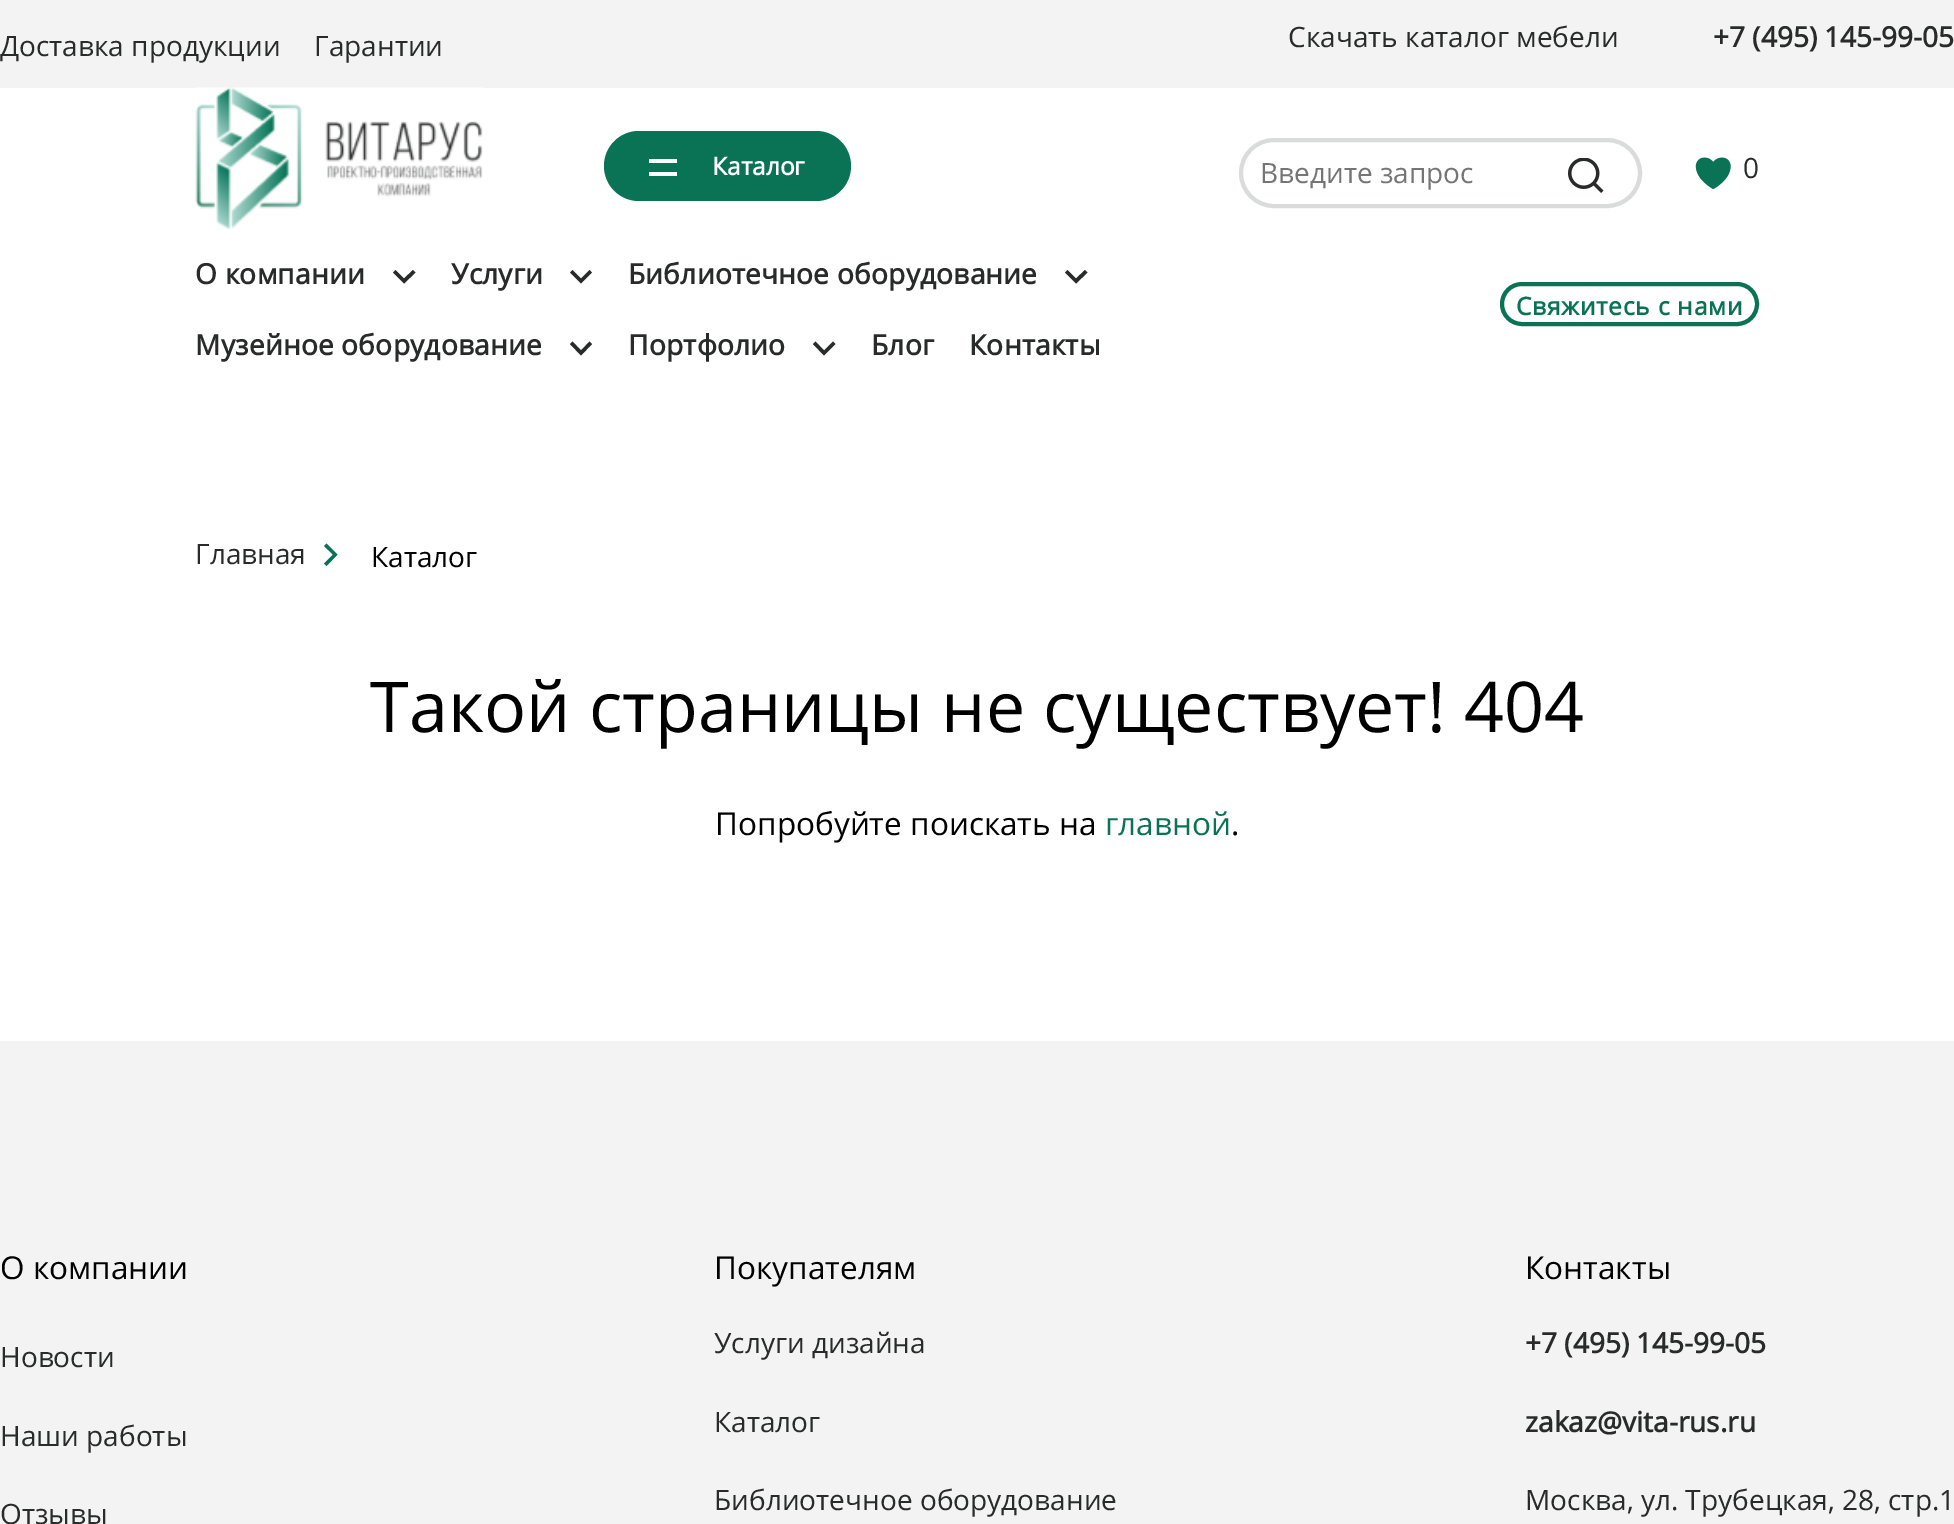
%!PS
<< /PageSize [1954 1524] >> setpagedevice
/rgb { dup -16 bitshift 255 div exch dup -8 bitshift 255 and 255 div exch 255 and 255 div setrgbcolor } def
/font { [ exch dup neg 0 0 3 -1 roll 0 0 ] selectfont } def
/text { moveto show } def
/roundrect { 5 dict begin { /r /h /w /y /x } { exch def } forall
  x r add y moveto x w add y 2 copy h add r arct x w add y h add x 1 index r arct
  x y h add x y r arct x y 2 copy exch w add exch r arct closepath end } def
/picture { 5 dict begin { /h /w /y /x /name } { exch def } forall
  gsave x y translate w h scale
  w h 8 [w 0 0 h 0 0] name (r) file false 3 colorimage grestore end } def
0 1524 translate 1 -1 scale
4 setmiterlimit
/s1 { /OpenSans-Regular 28 font 16#292A2A rgb } def
/s2 { /OpenSans-Bold 28 font 16#292A2A rgb } def
/s3 { /OpenSans-Bold 24.5 font 16#FFFFFF rgb } def
/s4 { /OpenSans-Regular 28 font 16#757575 rgb } def
/s5 { /OpenSans-Regular 28 font 16#000000 rgb } def
/s6 { /OpenSans-Regular 70 font 16#000000 rgb } def
/s7 { /OpenSans-Regular 31.5 font 16#000000 rgb } def
/s8 { /OpenSans-Regular 31.5 font 16#0A7356 rgb } def
16#FFFFFF rgb
0 0 1954 1524 rectfill
16#F3F3F3 rgb
0 0 1954 88 rectfill
s1
(Доставка продукции) 0 56 text
(Гарантии) 314 56 text
(Скачать каталог мебели) 1288 47 text
s2
(+7 \(495\) 145-99-05) 1713 47 text
(pic1.raw) 195 87 288 143 picture
16#0A7356 rgb
604 131 247 70 35 roundrect fill
16#FFFFFF rgb
649 159 28 4 rectfill
649 172 28 4 rectfill
s3
(Каталог) 712 175 text
16#DADBDB rgb
4 setlinewidth
1241 140 399 66 33 roundrect stroke
s4
(Введите запрос) 1260 183 text
(pic2.raw) 1568 158 36 35 picture
(pic3.raw) 1695 157 36 32 picture
s1
(0) 1743 178 text
/OpenSans-Bold 28 font
195 284 moveto 0.25 0 (О компании) ashow
404 278.5 moveto 413 270 lineto 415.5 272.5 lineto 404 283.5 lineto 393 272.5 lineto 395.5 270 lineto closepath fill
451 284 moveto 0.25 0 (Услуги) ashow
581 278.5 moveto 589.5 270 lineto 592 272.5 lineto 581 283.5 lineto 570 272.5 lineto 572.5 270 lineto closepath fill
628 284 moveto 0.25 0 (Библиотечное оборудование) ashow
1076 278.5 moveto 1085 270 lineto 1087.5 272.5 lineto 1076 283.5 lineto 1065 272.5 lineto 1067.5 270 lineto closepath fill
195 355 moveto 0.25 0 (Музейное оборудование) ashow
581 350.5 moveto 589.5 341.5 lineto 592 344 lineto 581 355.5 lineto 570 344 lineto 572.5 341.5 lineto closepath fill
628 355 moveto 0.25 0 (Портфолио) ashow
824 350.5 moveto 833 341.5 lineto 835.5 344 lineto 824 355.5 lineto 813 344 lineto 815.5 341.5 lineto closepath fill
871 355 moveto 0.25 0 (Блог) ashow
969 355 moveto 0.25 0 (Контакты) ashow
16#0A7356 rgb
1502 284 255 40 20 roundrect stroke
/OpenSans-Bold 24.5 font
1516 315 moveto 0.75 0 (Свяжитесь с нами) ashow
s1
(Главная) 195 564 text
16#0A7356 rgb
333 554.5 moveto 324 546 lineto 326.5 543.5 lineto 337.5 554.5 lineto 326.5 566 lineto 324 563.5 lineto closepath fill
s5
(Каталог) 371 567 text
s6
(Такой страницы не существует! 404) 370 732 text
s7
(Попробуйте поискать на) 715 835 text
s8
(главной) 1105 835 text
s7
(.) 1231 835 text
16#F3F3F3 rgb
0 1041 1954 483 rectfill
s7
(О компании) 0 1279 text
s1
(Новости) 0 1367 text
(Наши работы) 0 1446 text
(Отзывы) 0 1524 text
s7
(Покупателям) 714 1279 text
s1
(Услуги дизайна) 714 1353 text
(Каталог) 714 1432 text
(Библиотечное оборудование) 714 1510 text
s7
(Контакты) 1525 1279 text
s2
(+7 \(495\) 145-99-05) 1525 1353 text
(zakaz@vita-rus.ru) 1525 1432 text
s1
(Москва, ул. Трубецкая, 28, стр.1) 1525 1510 text
showpage
